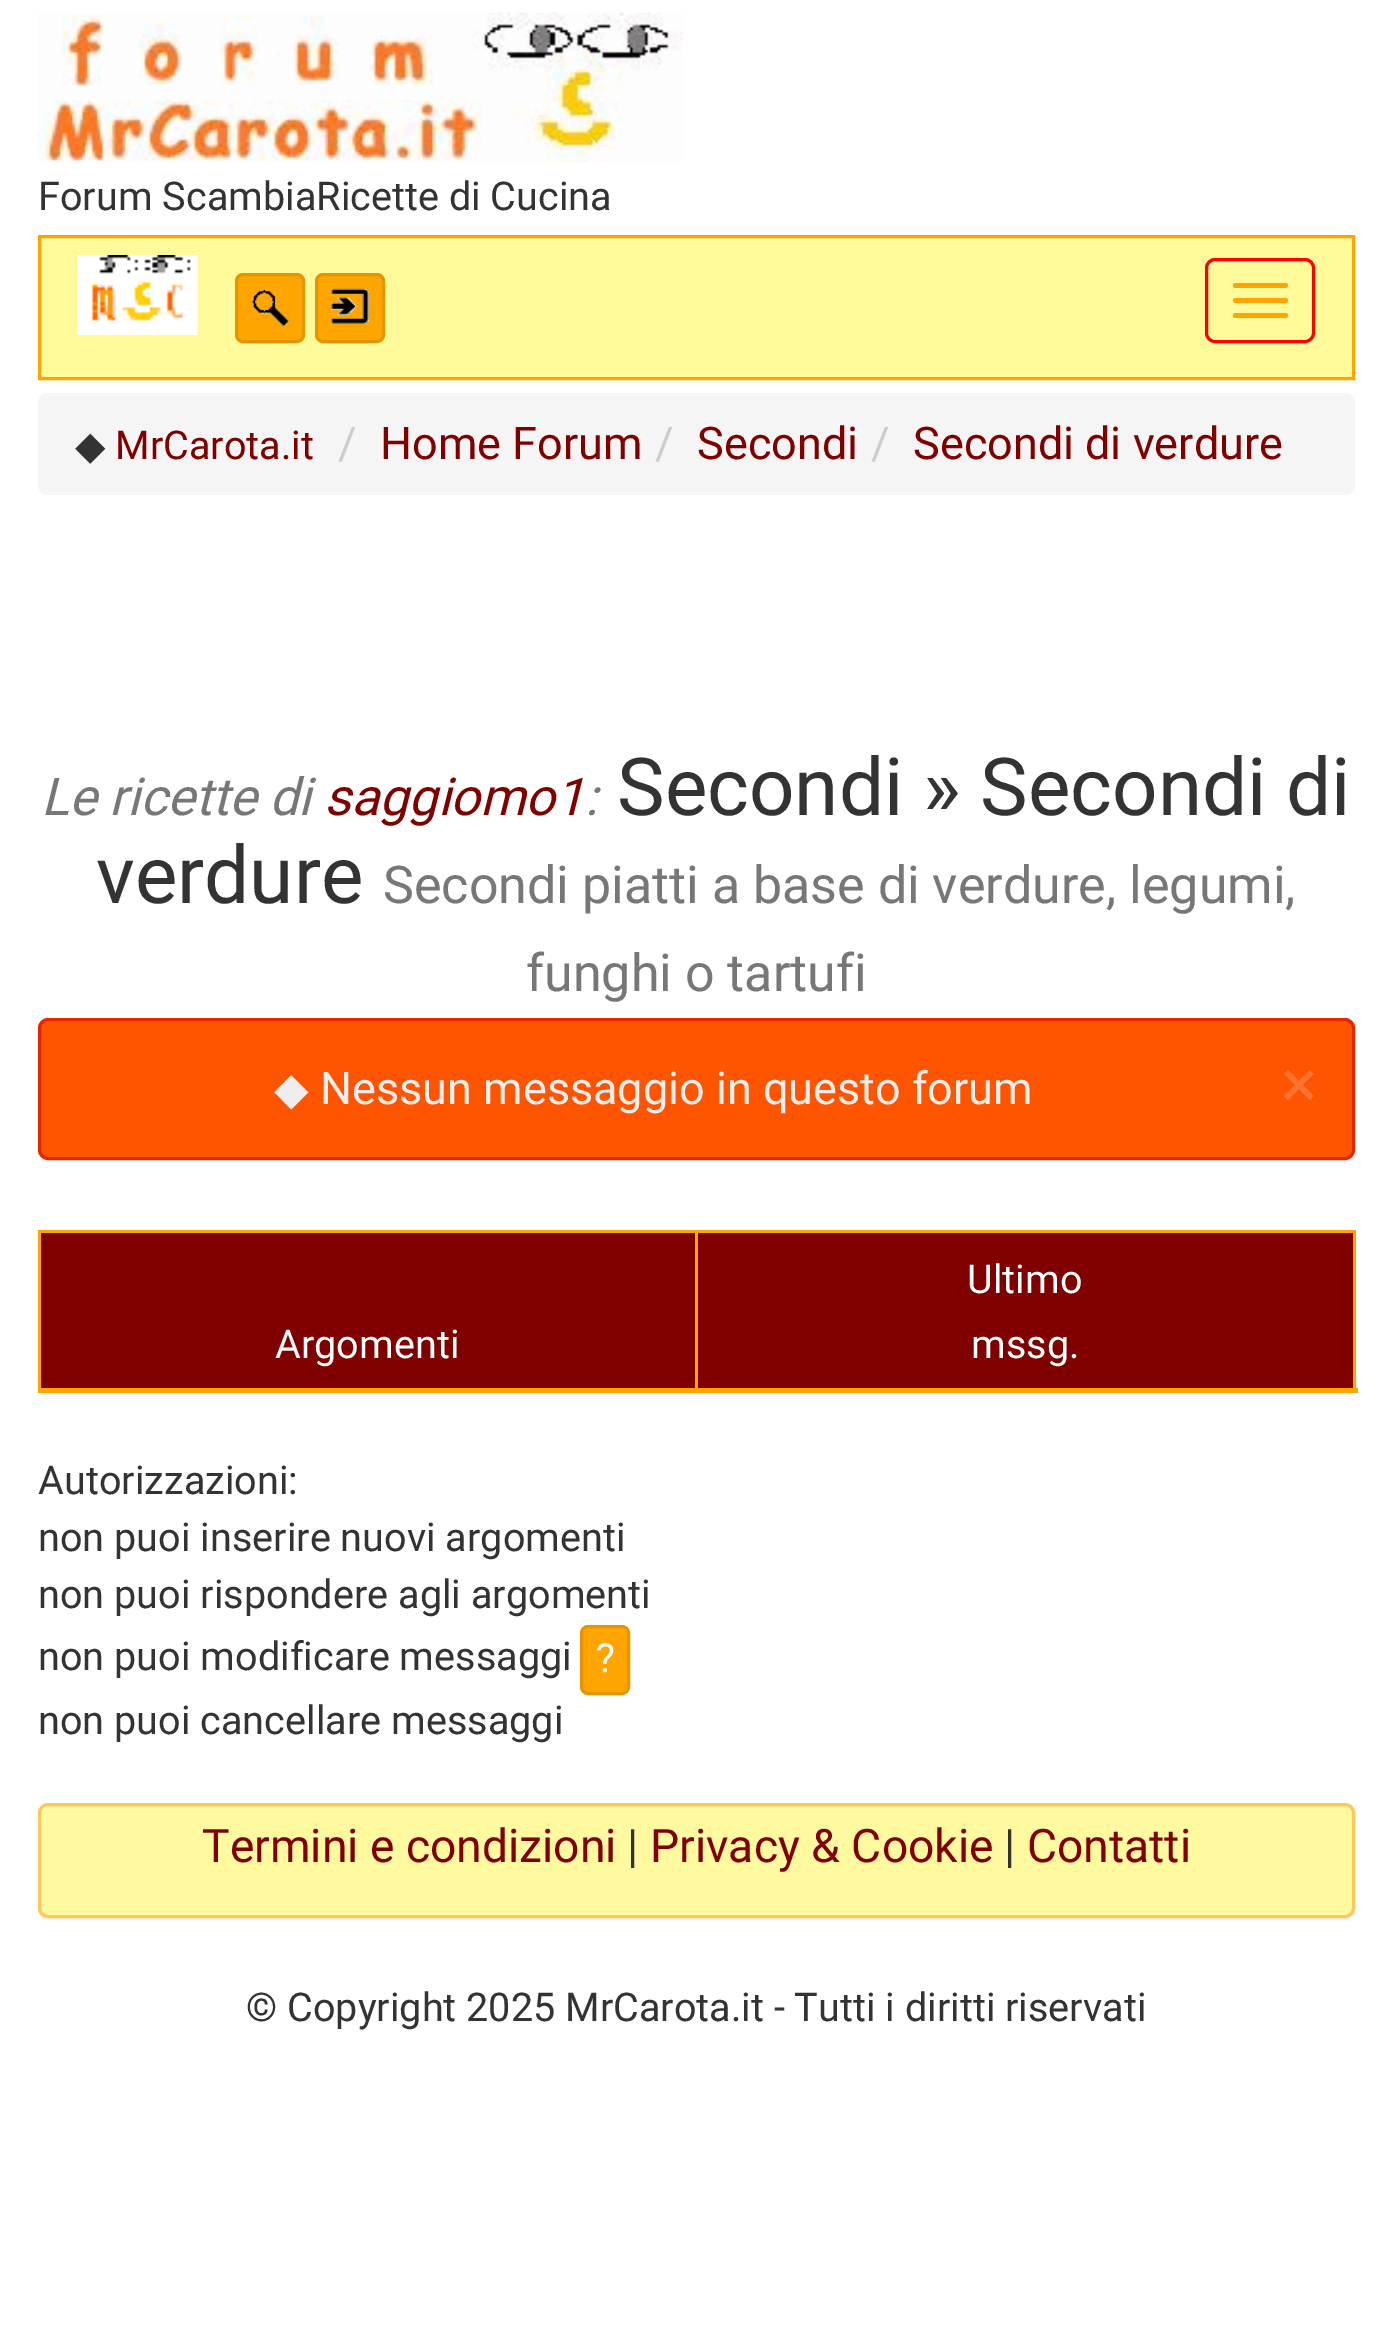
%!PS
<< /PageSize [1391 2346] /PageUsesTransparency true >> setpagedevice
/rgb { dup -16 bitshift 255 div exch dup -8 bitshift 255 and 255 div exch 255 and 255 div setrgbcolor } def
/font { [ exch dup neg 0 0 3 -1 roll 0 0 ] selectfont } def
/text { moveto show } def
/alpha { dup .setfillconstantalpha .setstrokeconstantalpha } def
/roundrect { 5 dict begin { /r /h /w /y /x } { exch def } forall
  x r add y moveto x w add y 2 copy h add r arct x w add y h add x 1 index r arct
  x y h add x y r arct x y 2 copy exch w add exch r arct closepath end } def
/shadow { 12 dict begin { /a /b /q /h /w /y /x } { exch def } forall gsave /was 0 def
  9 -2 -9 { dup b mul 4 div /e exch def 1 sub .425 mul 2.718 exch exp 1 add a .99 .min exch div /now exch def
    1 1 now sub 1 was sub div sub alpha /was now def
    w h .min e 2 mul add 0 gt { x e sub y e sub w e 2 mul add h e 2 mul add
      q e add b .6 mul add w h .min 2 div e add .min 0 .max roundrect fill } if } for grestore end } def
/picture { 5 dict begin { /h /w /y /x /name } { exch def } forall
  gsave x y translate w h scale
  w h 8 [w 0 0 h 0 0] name (r) file false 3 colorimage grestore end } def
0 .pushpdf14devicefilter
0 2346 translate 1 -1 scale
4 setmiterlimit
/s1 { /Roboto-Regular 39.6 font 16#333333 rgb } def
/s2 { /DejaVuSans-Regular 39.6 font 16#333333 rgb } def
/s3 { /Roboto-Regular 39.6 font 16#800000 rgb } def
/s4 { /Roboto-Regular 45 font 16#CCCCCC rgb } def
/s5 { /Roboto-Regular 45 font 16#800000 rgb } def
/s6 { /Roboto-Italic 52 font 16#777777 rgb } def
/s7 { /Roboto-Italic 52 font 16#800000 rgb } def
/s8 { /Roboto-Regular 80 font 16#333333 rgb } def
/s9 { /Roboto-Regular 52 font 16#777777 rgb } def
/s10 { /DejaVuSans-Regular 45 font 16#EEEEEE rgb } def
/s11 { /Roboto-Regular 45 font 16#EEEEEE rgb } def
/s12 { /Roboto-Regular 68 font 16#FC7430 rgb } def
/s13 { /Roboto-Regular 39.6 font 16#FFFFFF rgb } def
/s14 { /Roboto-Regular 40 font 16#FFFFFF rgb } def
/s15 { /Roboto-Regular 46.25 font 16#800000 rgb } def
/s16 { /Roboto-Regular 46.25 font 16#333333 rgb } def
16#FFFFFF rgb
0 0 1391 2346 rectfill
(pic1.raw) 37 12 646 151 picture
s1
(Forum ScambiaRicette di Cucina) 38 210 text
16#FFFA99 rgb
39.5 236.5 moveto 1353.5 236.5 lineto 1353.5 378.5 lineto 39.5 378.5 lineto closepath gsave fill grestore
16#FFA500 rgb
3 setlinewidth
stroke
(pic2.raw) 77 255 121 80 picture
236.5 274.5 67 67 6.5 roundrect gsave fill grestore
16#E69500 rgb
stroke
(pic3.raw) 252 289 37 38 picture
16#FFA500 rgb
316.5 274.5 67 67 6.5 roundrect gsave fill grestore
16#E69500 rgb
stroke
(pic4.raw) 331 288 38 36 picture
16#FF0000 rgb
1206.5 259.5 107 82 8.5 roundrect stroke
16#FFA500 rgb
1233 283 55 5 2.5 roundrect fill
1233 298 55 5 2.5 roundrect fill
1233 313 55 5 2.5 roundrect fill
16#F5F5F5 rgb
38 393 1317 102 10 roundrect fill
s2
(◆) 75 459 text
s3
(MrCarota.it) 115 459 text
s4
(/) 338 459 text
s5
(Home Forum) 380 459 text
s4
(/) 655 459 text
s5
(Secondi) 697 459 text
s4
(/) 871 459 text
s5
(Secondi di verdure) 913 459 text
s6
(Le ricette di) 41 815 text
s7
(saggiomo1) 324 815 text
s6
(:) 585 815 text
s8
(Secondi » Secondi di) 617 815 text
(verdure) 96 903 text
s9
(Secondi piatti a base di verdure, legumi,) 383 903 text
(funghi o tartufi) 526 991 text
16#FF5500 rgb
39.5 1019.5 1314 139 8.5 roundrect gsave fill grestore
16#E62600 rgb
stroke
s10
(◆) 274 1104 text
s11
(Nessun messaggio in questo forum) 320 1104 text
s12
(×) 1281 1107 text
16#FFA500 rgb
38 1230 1317 3 rectfill
1353 1230 3 163 rectfill
38 1230 3 163 rectfill
16#800000 rgb
41 1233 654 155 rectfill
s13
(Argomenti) 275 1358 text
16#800000 rgb
698 1233 655 155 rectfill
16#FFA500 rgb
695 1230 3 160 rectfill
38 1388 1320 5 rectfill
s13
(Ultimo) 967 1293 text
(mssg.) 971 1358 text
s1
(Autorizzazioni:) 38 1494 text
(non puoi inserire nuovi argomenti) 38 1551 text
(non puoi rispondere agli argomenti) 38 1608 text
(non puoi modificare messaggi) 38 1670 text
16#FFA500 rgb
581.5 1626.5 47 67 6.5 roundrect gsave fill grestore
16#E69500 rgb
stroke
s14
(?) 596 1672 text
s1
(non puoi cancellare messaggi) 38 1734 text
16#000000 rgb
38 1805 1317 115 10 1 0.05 shadow
16#FFFAA0 rgb
39.5 1804.5 1314 112 8.5 roundrect gsave fill grestore
16#FEC859 rgb
stroke
s15
(Termini e condizioni) 202 1862 text
s16
(|) 627 1862 text
s15
(Privacy & Cookie) 650 1862 text
s16
(|) 1004 1862 text
s15
(Contatti) 1027 1862 text
s1
(© Copyright 2025 MrCarota.it - Tutti i diritti riservati) 246 2021 text
.poppdf14devicefilter showpage
